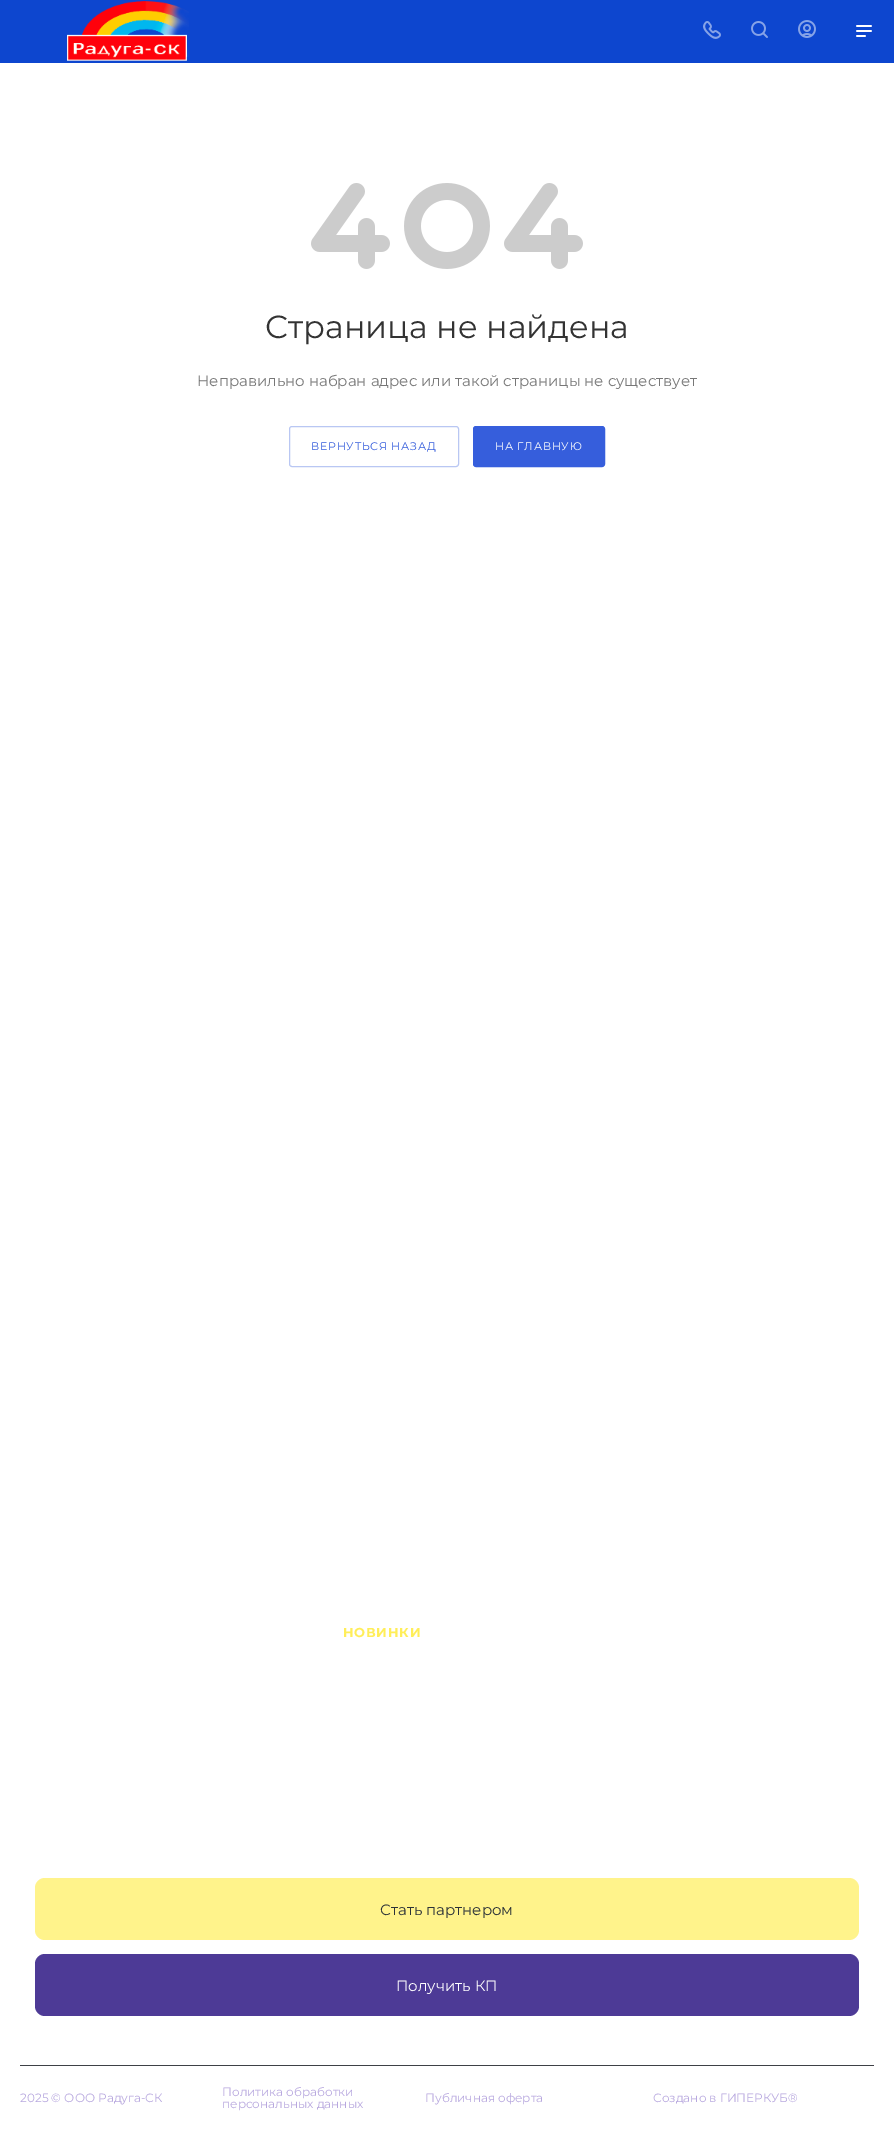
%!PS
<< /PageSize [894 2140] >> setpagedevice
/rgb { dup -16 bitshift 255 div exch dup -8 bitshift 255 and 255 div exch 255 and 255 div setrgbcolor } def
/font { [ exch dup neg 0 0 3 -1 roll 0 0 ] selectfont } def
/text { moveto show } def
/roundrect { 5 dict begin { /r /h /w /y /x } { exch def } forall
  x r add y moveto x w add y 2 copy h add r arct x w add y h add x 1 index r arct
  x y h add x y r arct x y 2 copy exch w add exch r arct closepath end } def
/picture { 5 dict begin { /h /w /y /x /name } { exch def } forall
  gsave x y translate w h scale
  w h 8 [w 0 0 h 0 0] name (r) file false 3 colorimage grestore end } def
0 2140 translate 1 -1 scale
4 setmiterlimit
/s1 { /Montserrat-Regular 32 font 16#333333 rgb } def
/s2 { /Montserrat-Regular 15 font 16#777777 rgb } def
/s3 { /Montserrat-Regular 15 font 16#2B3238 rgb } def
/s4 { /Montserrat-Regular 15 font 16#FFFFFF rgb } def
/s5 { /Montserrat-Regular 12 font 16#B8A8DF rgb } def
16#FFFFFF rgb
0 0 894 2140 rectfill
16#0D46CF rgb
0 0 894 63 rectfill
(pic1.raw) 67 1 122 60 picture
(pic2.raw) 703 21 18 18 picture
(pic3.raw) 751 21 17 17 picture
(pic4.raw) 798 20 18 18 picture
(pic5.raw) 856 25 16 12 picture
(pic6.raw) 311 183 272 86 picture
s1
(Страница не найдена) 265 338 text
s2
(Неправильно набран адрес или такой страницы не существует) 197 386 text
16#B9C7F3 rgb
289.5 426.5 169 40 2.5 roundrect stroke
/Montserrat-Regular 11 font
16#365EDC rgb
311 450 moveto 0.75 0 (ВЕРНУТЬСЯ НАЗАД) ashow
473.5 426.5 131 40 2.5 roundrect gsave fill grestore
stroke
16#FFFFFF rgb
495 450 moveto 0.75 0 (НА ГЛАВНУЮ) ashow
/Montserrat-Bold 13 font
16#FFEE59 rgb
343 1637 moveto 0.75 0 (НОВИНКИ) ashow
16#FFF38B rgb
35 1878 824 62 10 roundrect fill
s3
(Стать партнером) 380 1915 text
16#4D3A96 rgb
35 1954 824 62 10 roundrect fill
s4
(Получить КП) 396 1991 text
16#3E4146 rgb
20 2065 854 1 rectfill
s5
(2025 © ООО Радуга-СК) 20 2102 text
(Политика обработки) 222 2096 text
(персональных данных) 222 2108 text
(Публичная оферта) 425 2102 text
(Создано в ГИПЕРКУБ®) 653 2102 text
showpage
